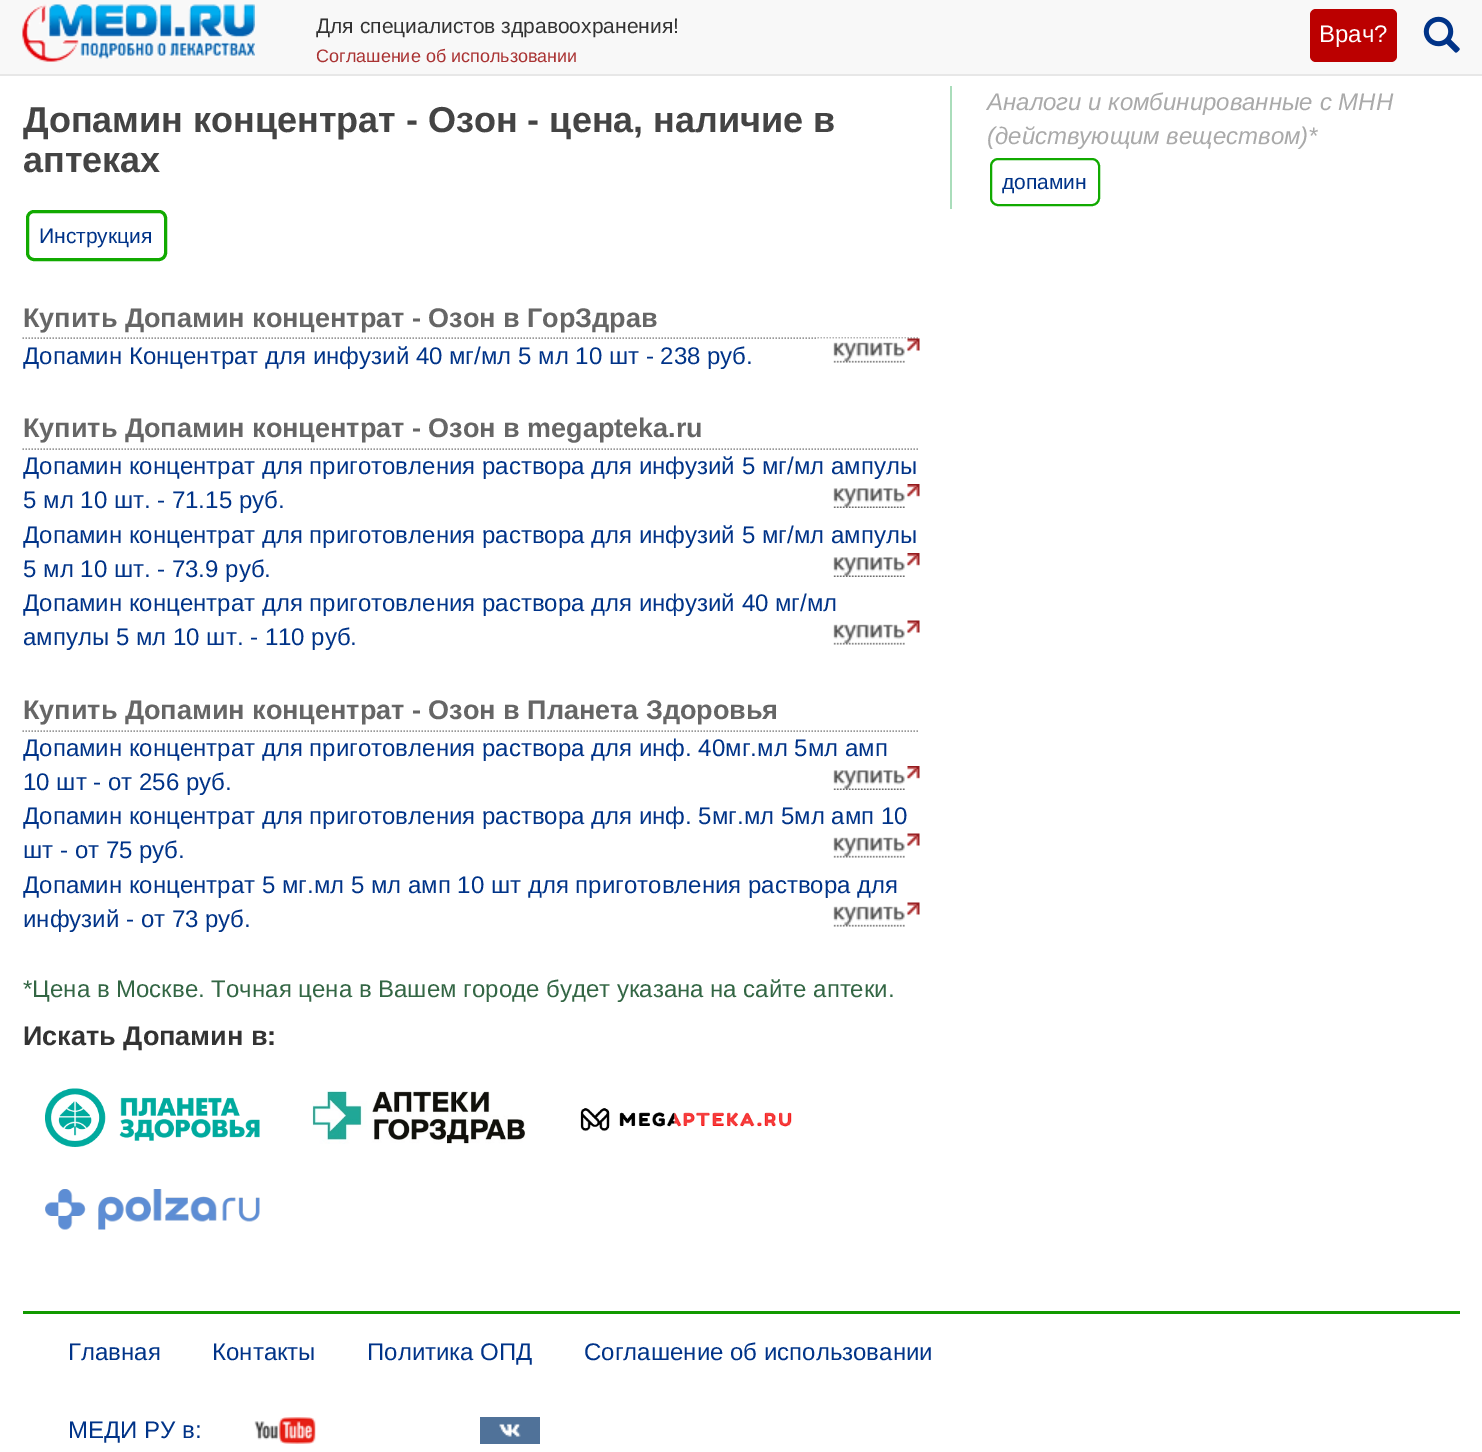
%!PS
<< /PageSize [1482 1452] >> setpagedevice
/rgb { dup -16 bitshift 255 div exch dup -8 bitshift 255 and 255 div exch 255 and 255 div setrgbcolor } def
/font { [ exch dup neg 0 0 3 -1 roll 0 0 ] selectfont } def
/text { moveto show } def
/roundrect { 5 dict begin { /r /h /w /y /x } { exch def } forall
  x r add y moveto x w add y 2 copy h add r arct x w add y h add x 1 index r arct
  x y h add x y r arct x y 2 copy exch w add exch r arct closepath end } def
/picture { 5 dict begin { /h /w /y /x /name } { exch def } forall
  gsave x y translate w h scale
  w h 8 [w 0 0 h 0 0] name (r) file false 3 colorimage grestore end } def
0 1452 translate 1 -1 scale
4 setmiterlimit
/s1 { /LiberationSans-Regular 21 font 16#333333 rgb } def
/s2 { /LiberationSans-Regular 18 font 16#AA3333 rgb } def
/s3 { /LiberationSans-Regular 24 font 16#FFFFFF rgb } def
/s4 { /LiberationSans-Bold 36 font 16#444444 rgb } def
/s5 { /LiberationSans-Regular 21 font 16#003388 rgb } def
/s6 { /LiberationSans-Bold 27 font 16#666666 rgb } def
/s7 { /LiberationSans-Regular 24 font 16#003388 rgb } def
/s8 { /LiberationSans-Regular 24 font 16#336644 rgb } def
/s9 { /LiberationSans-Bold 27 font 16#333333 rgb } def
/s10 { /LiberationSans-Italic 24 font 16#AAAAAA rgb } def
16#FFFFFF rgb
0 0 1482 1452 rectfill
16#F8F8F8 rgb
0 0 1482 74 rectfill
16#E7E7E7 rgb
0 74 1482 2 rectfill
(pic1.raw) 22 4 233 58 picture
s1
(Для специалистов здравоохранения!) 316 33 text
s2
(Соглашение об использовании) 316 62 text
16#BB0000 rgb
1310 9 87 53 6 roundrect fill
s3
(Врач?) 1319 42 text
(pic2.raw) 1423 16 37 37 picture
s4
(Допамин концентрат - Озон - цена, наличие в) 23 132 text
(аптеках) 23 172 text
16#11AA00 rgb
3 setlinewidth
27.5 211.5 138 48 6.5 roundrect stroke
s5
(Инструкция) 39 243 text
16#999999 rgb
1.5 setlinewidth
[1.5 1.5] 0 setdash
22.5 338 moveto 919.5 338 lineto stroke
s6
(Купить Допамин концентрат - Озон в ГорЗдрав) 23 327 text
s7
(Допамин Концентрат для инфузий 40 мг/мл 5 мл 10 шт - 238 руб.) 23 364 text
(pic3.raw) 817 338 103 25 picture
16#999999 rgb
22.5 449 moveto 919.5 449 lineto stroke
s6
(Купить Допамин концентрат - Озон в megapteka.ru) 23 437 text
s7
(Допамин концентрат для приготовления раствора для инфузий 5 мг/мл ампулы) 23 474 text
(5 мл 10 шт. - 71.15 руб.) 23 508 text
(pic4.raw) 833 484 87 24 picture
(Допамин концентрат для приготовления раствора для инфузий 5 мг/мл ампулы) 23 543 text
(5 мл 10 шт. - 73.9 руб.) 23 577 text
(pic4.raw) 833 553 87 24 picture
(Допамин концентрат для приготовления раствора для инфузий 40 мг/мл) 23 611 text
(ампулы 5 мл 10 шт. - 110 руб.) 23 645 text
(pic5.raw) 833 620 87 25 picture
16#999999 rgb
22.5 731 moveto 919.5 731 lineto stroke
s6
(Купить Допамин концентрат - Озон в Планета Здоровья) 23 719 text
s7
(Допамин концентрат для приготовления раствора для инф. 40мг.мл 5мл амп) 23 756 text
(10 шт - от 256 руб.) 23 790 text
(pic4.raw) 833 766 87 24 picture
(Допамин концентрат для приготовления раствора для инф. 5мг.мл 5мл амп 10) 23 824 text
(шт - от 75 руб.) 23 858 text
(pic5.raw) 833 833 87 25 picture
(Допамин концентрат 5 мг.мл 5 мл амп 10 шт для приготовления раствора для) 23 893 text
(инфузий - от 73 руб.) 23 927 text
(pic5.raw) 833 902 87 25 picture
s8
(*Цена в Москве. Точная цена в Вашем городе будет указана на сайте аптеки.) 23 997 text
s9
(Искать Допамин в:) 23 1045 text
(pic6.raw) 45 1088 215 59 picture
(pic7.raw) 312 1091 214 53 picture
(pic8.raw) 580 1108 212 24 picture
(pic9.raw) 45 1189 215 41 picture
16#AADDBB rgb
950 86 2 123 rectfill
s10
(Аналоги и комбинированные с МНН) 987 110 text
(\(действующим веществом\)*) 987 144 text
16#11AA00 rgb
2 setlinewidth
[] 0 setdash
991 159 108 46 7 roundrect stroke
s5
(допамин) 1002 189 text
16#119900 rgb
23 1311 1437 3 rectfill
s7
(Главная) 68 1360 text
(Контакты) 212 1360 text
(Политика ОПД) 367 1360 text
(Соглашение об использовании) 584 1360 text
(МЕДИ РУ в:) 68 1438 text
(pic10.raw) 254 1417 62 27 picture
(pic11.raw) 480 1417 60 27 picture
showpage
